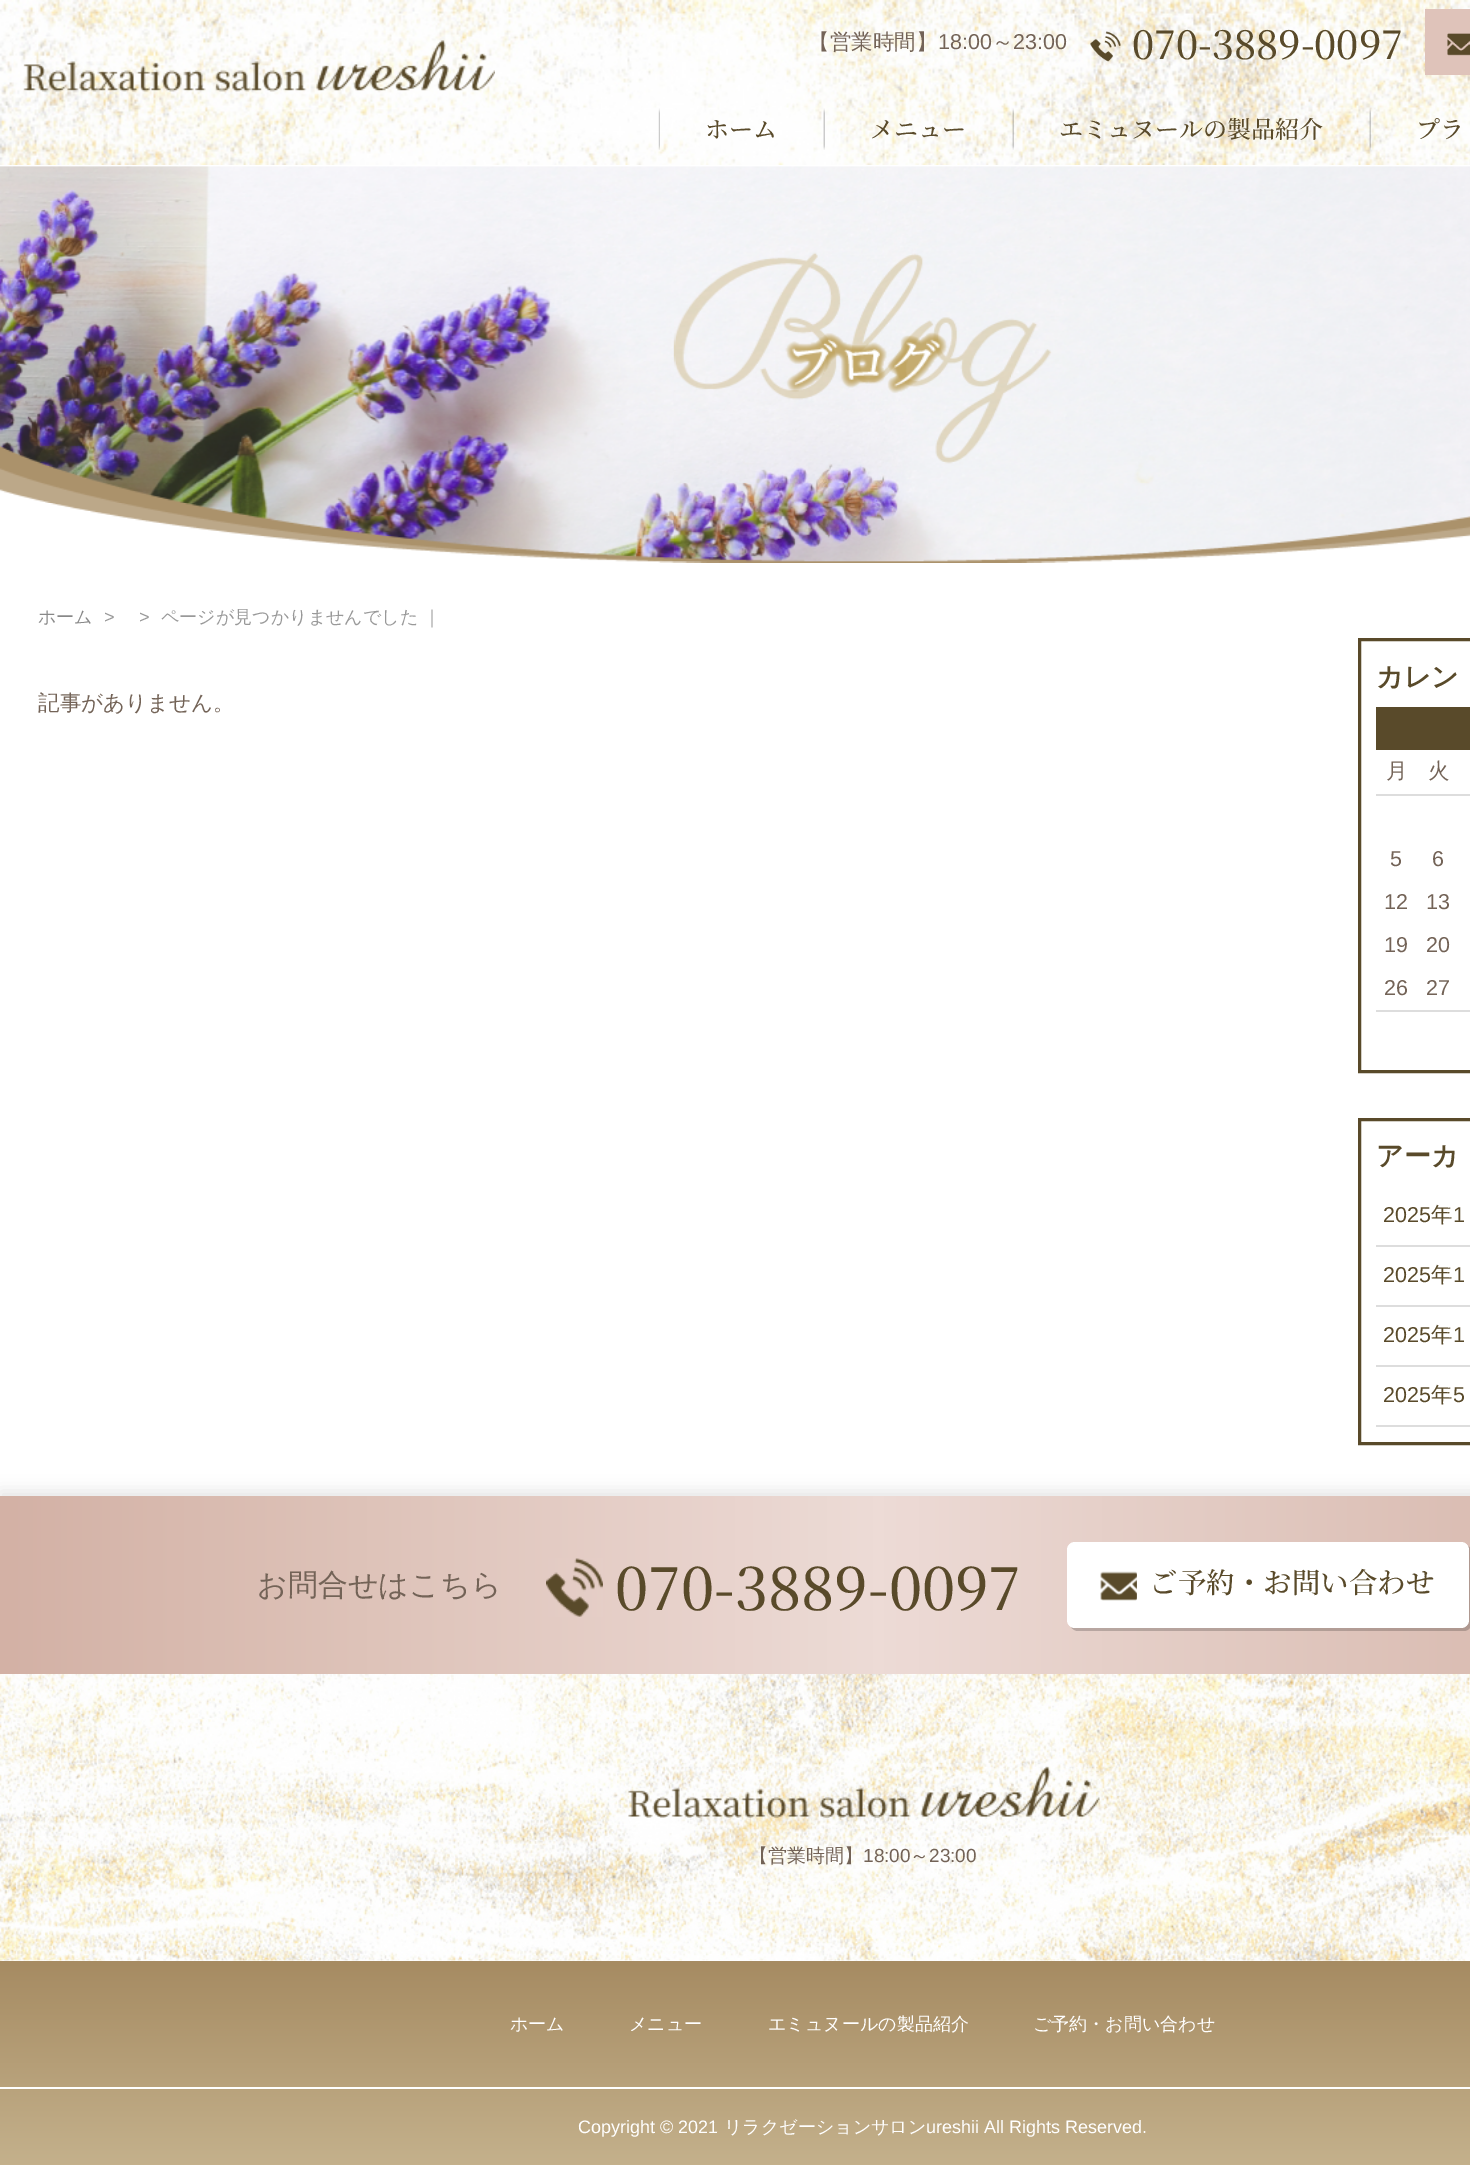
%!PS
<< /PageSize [1470 2165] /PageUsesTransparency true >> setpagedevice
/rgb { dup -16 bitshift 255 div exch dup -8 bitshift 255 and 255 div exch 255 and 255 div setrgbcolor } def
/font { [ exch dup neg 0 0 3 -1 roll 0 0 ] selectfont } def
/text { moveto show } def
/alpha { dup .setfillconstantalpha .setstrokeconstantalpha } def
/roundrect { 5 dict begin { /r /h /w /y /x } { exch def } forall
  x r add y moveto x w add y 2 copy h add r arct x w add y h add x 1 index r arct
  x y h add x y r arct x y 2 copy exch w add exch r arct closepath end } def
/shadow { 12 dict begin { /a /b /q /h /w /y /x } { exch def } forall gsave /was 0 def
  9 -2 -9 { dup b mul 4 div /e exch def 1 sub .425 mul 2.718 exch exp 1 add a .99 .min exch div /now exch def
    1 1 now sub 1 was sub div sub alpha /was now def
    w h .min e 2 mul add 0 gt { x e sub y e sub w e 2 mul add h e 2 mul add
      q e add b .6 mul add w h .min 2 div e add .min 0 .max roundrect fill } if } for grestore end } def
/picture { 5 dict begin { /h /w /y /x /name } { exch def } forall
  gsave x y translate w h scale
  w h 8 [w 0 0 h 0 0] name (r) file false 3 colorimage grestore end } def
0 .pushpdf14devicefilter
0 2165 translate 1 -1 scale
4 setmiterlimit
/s1 { /WenQuanYiZenHei-Medium 21.5 font 16#736357 rgb } def
/s2 { /LiberationSans-Regular 21.5 font 16#736357 rgb } def
/s3 { /NotoSerifJP-Medium 39 font 16#594A2A rgb } def
/s4 { /NotoSerifJP-Medium 24 font 16#594A2A rgb } def
/s5 { /WenQuanYiZenHei-Medium 18 font 16#888888 rgb } def
/s6 { /LiberationSans-Regular 18 font 16#999999 rgb } def
/s7 { /WenQuanYiZenHei-Medium 18 font 16#999999 rgb } def
/s8 { /WenQuanYiZenHei-Bold 27 font 16#594A2A rgb } def
/s9 { /LiberationSans-Regular 21.5 font 16#594A2A rgb } def
/s10 { /WenQuanYiZenHei-Medium 21.5 font 16#594A2A rgb } def
/s11 { /WenQuanYiZenHei-Medium 30 font 16#736357 rgb } def
/s12 { /NotoSerifJP-Medium 58.5 font 16#594A2A rgb } def
/s13 { /NotoSerifJP-Medium 28.5 font 16#594A2A rgb } def
/s14 { /WenQuanYiZenHei-Medium 19 font 16#736357 rgb } def
/s15 { /LiberationSans-Regular 19 font 16#736357 rgb } def
/s16 { /WenQuanYiZenHei-Medium 18 font 16#FFFFFF rgb } def
/s17 { /LiberationSans-Regular 18 font 16#FFFFFF rgb } def
16#FFFFFF rgb
0 0 1470 2165 rectfill
(pic1.raw) 0 0 1470 165 picture
(pic2.raw) 23 40 472 52 picture
s1
(【営業時間】) 808 49 text
s2
(18:00) 938 49 text
s1
(～) 992 49 text
s2
(23:00) 1013 49 text
(pic3.raw) 1090 31 31 31 picture
s3
(070-3889-0097) 1132 59 text
16#DFC3BA rgb
1425 9 45 66 rectfill
(pic4.raw) 1447 33 23 23 picture
(pic5.raw) 658 108 2 42 picture
s4
(ホーム) 705 138 text
(pic6.raw) 823 108 2 42 picture
(メニュー) 870 138 text
(pic7.raw) 1012 108 2 42 picture
(エミュヌールの製品紹介) 1059 138 text
(pic8.raw) 1369 108 2 42 picture
(プラ) 1416 138 text
(pic9.raw) 0 166 1470 397 picture
s5
(ホーム) 38 623 text
s6
(>) 104 623 text
(>) 139 623 text
s7
(ページが見つかりませんでした ｜) 161 623 text
s1
(記事がありません。) 38 710 text
16#594A2A rgb
3 setlinewidth
1359.5 639.5 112 432 rectstroke
s8
(カレン) 1376 686 text
1376 707 94 43 rectfill
s1
(月) 1386 778 text
(火) 1428 778 text
16#DDDDDD rgb
1376 794 94 2 rectfill
s2
(5) 1390 866 text
(6) 1432 866 text
(12) 1384 909 text
(13) 1426 909 text
(19) 1384 952 text
(20) 1426 952 text
(26) 1384 995 text
(27) 1426 995 text
16#DDDDDD rgb
1376 1010 94 2 rectfill
16#594A2A rgb
1359.5 1119.5 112 324 rectstroke
s8
(アーカ) 1376 1165 text
16#DDDDDD rgb
1376 1245 94 2 rectfill
s9
(2025) 1383 1222 text
s10
(年) 1431 1222 text
s9
(1) 1453 1222 text
16#DDDDDD rgb
1376 1305 94 2 rectfill
s9
(2025) 1383 1282 text
s10
(年) 1431 1282 text
s9
(1) 1453 1282 text
16#DDDDDD rgb
1376 1365 94 2 rectfill
s9
(2025) 1383 1342 text
s10
(年) 1431 1342 text
s9
(1) 1453 1342 text
16#DDDDDD rgb
1376 1425 94 2 rectfill
s9
(2025) 1383 1402 text
s10
(年) 1431 1402 text
s9
(5) 1453 1402 text
16#000000 rgb
0 1491 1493 671 0 7.5 0.1 shadow
gsave 0 1496 moveto 1470 1496 lineto 1470 1674 lineto 0 1674 lineto closepath clip newpath
<< /ShadingType 2 /ColorSpace /DeviceRGB /Coords [0 1585 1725 1585] /Extend [true true] /Function << /FunctionType 3 /Domain [0 1] /Functions [<< /FunctionType 2 /Domain [0 1] /C0 [0.827 0.694 0.647] /C1 [0.929 0.859 0.839] /N 1 >> << /FunctionType 2 /Domain [0 1] /C0 [0.929 0.859 0.839] /C1 [0.827 0.694 0.647] /N 1 >>] /Bounds [0.51] /Encode [0 1 0 1] >> >> shfill grestore
s11
(お問合せはこちら) 257 1595 text
(pic10.raw) 546 1558 57 59 picture
s12
(070-3889-0097) 615 1610 text
0.2 alpha
16#000000 rgb
1071 1627 moveto 1072 1629 1075 1631 1078 1631 curveto 1464 1631 lineto 1468 1631 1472 1627 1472 1623 curveto 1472 1553 lineto 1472 1550 1470 1547 1468 1546 curveto 1468 1550 lineto 1468 1620 lineto 1468 1624 1465 1628 1461 1628 curveto 1074 1628 lineto closepath fill
1 alpha
16#FFFFFF rgb
1067 1542 402 86 8 roundrect fill
(pic11.raw) 1100 1571 37 30 picture
s13
(ご予約・お問い合わせ) 1149 1593 text
(pic12.raw) 0 1674 1470 287 picture
(pic13.raw) 628 1766 472 52 picture
s14
(【営業時間】) 749 1862 text
s15
(18:00) 863 1862 text
s14
(～) 910 1862 text
s15
(23:00) 929 1862 text
gsave 0 1961 moveto 1470 1961 lineto 1470 2165 lineto 0 2165 lineto closepath clip newpath
<< /ShadingType 2 /ColorSpace /DeviceRGB /Coords [863 1961 863 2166] /Extend [true true] /Function << /FunctionType 2 /Domain [0 1] /C0 [0.651 0.545 0.384] /C1 [0.769 0.694 0.549] /N 1 >> >> shfill grestore
16#FFFFFF rgb
0 2087 1470 2 rectfill
s16
(ホーム) 510 2030 text
(メニュー) 629 2030 text
(エミュヌールの製品紹介) 768 2030 text
(ご予約・お問い合わせ) 1033 2030 text
s17
(Copyright © 2021) 578 2133 text
s16
(リラクゼーションサロン) 724 2133 text
s17
(ureshii All Rights Reserved.) 926 2133 text
.poppdf14devicefilter showpage
